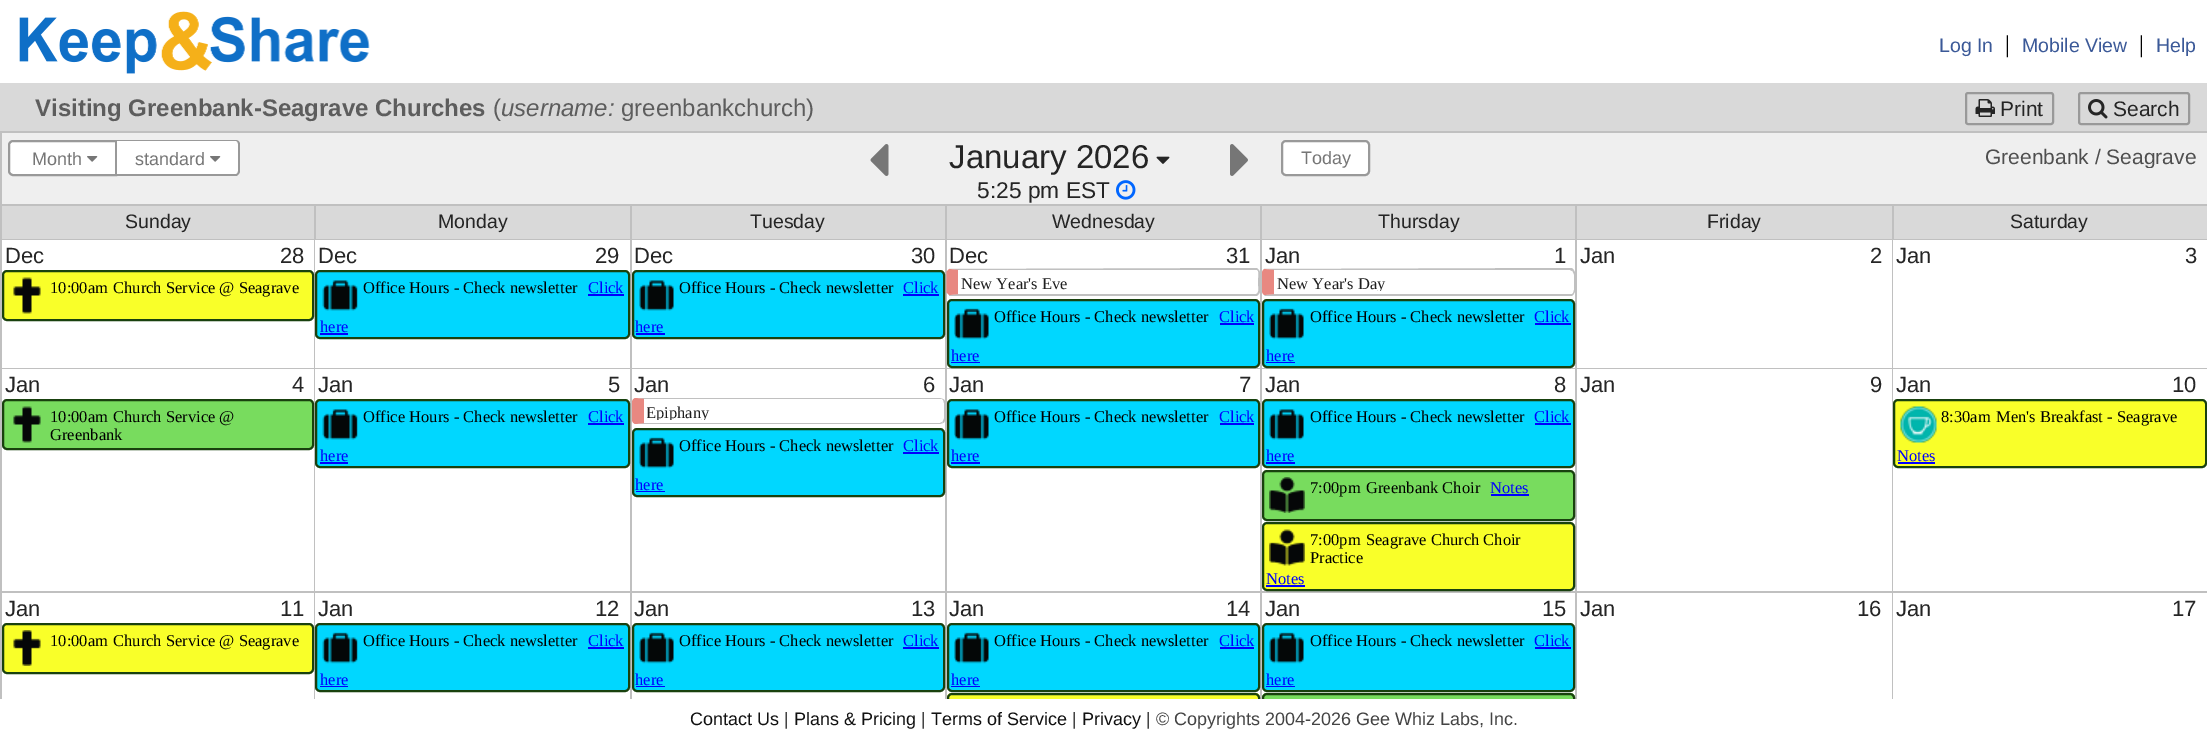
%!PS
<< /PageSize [2207 737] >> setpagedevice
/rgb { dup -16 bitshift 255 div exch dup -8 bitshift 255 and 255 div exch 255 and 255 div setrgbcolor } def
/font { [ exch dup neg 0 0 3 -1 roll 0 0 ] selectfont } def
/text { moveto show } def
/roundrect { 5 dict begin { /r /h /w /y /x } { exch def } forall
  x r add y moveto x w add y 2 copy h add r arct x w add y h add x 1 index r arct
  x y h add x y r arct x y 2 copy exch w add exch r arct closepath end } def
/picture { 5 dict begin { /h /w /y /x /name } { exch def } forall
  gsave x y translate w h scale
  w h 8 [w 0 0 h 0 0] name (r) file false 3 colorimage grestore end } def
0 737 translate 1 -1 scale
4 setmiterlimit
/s1 { /LiberationSans-Regular 19.5 font 16#3B5998 rgb } def
/s2 { /LiberationSerif-Regular 24 font 16#000000 rgb } def
/s3 { /LiberationSans-Bold 24 font 16#5D5D5D rgb } def
/s4 { /LiberationSans-Regular 24 font 16#5D5D5D rgb } def
/s5 { /LiberationSans-Italic 24 font 16#5D5D5D rgb } def
/s6 { /LiberationSans-Regular 21 font 16#252525 rgb } def
/s7 { /LiberationSans-Regular 18 font 16#767676 rgb } def
/s8 { /LiberationSans-Regular 33 font 16#252525 rgb } def
/s9 { /LiberationSans-Regular 22.75 font 16#252525 rgb } def
/s10 { /LiberationSans-Regular 21 font 16#4F4F4F rgb } def
/s11 { /LiberationSans-Regular 19.5 font 16#252525 rgb } def
/s12 { /LiberationSans-Regular 22 font 16#252525 rgb } def
/s13 { /LiberationSerif-Regular 16.5 font 16#000000 rgb } def
/s14 { /LiberationSerif-Regular 16.5 font 16#0000FF rgb } def
/s15 { /LiberationSerif-Regular 16.5 font 16#1F1F1F rgb } def
/s16 { /LiberationSans-Regular 18 font 16#111111 rgb } def
/s17 { /LiberationSans-Regular 18 font 16#444444 rgb } def
16#FFFFFF rgb
0 0 2207 737 rectfill
(pic1.raw) 19 11 351 63 picture
s1
(Log In) 1939 52 text
s2
(|) 2005 52 text
s1
(Mobile View) 2022 52 text
s2
(|) 2139 52 text
s1
(Help) 2156 52 text
16#D9D9D9 rgb
0 83 2207 48 rectfill
s3
(Visiting Greenbank-Seagrave Churches) 35 116 text
s4
(\() 493 116 text
s5
(username:) 501 116 text
s4
(greenbankchurch\)) 621 116 text
16#999999 rgb
2 setlinewidth
1966 93 87 31 2 roundrect stroke
(pic2.raw) 1975 99 20 18 picture
s6
(Print) 2000 116 text
16#999999 rgb
2079 93 110 31 2 roundrect stroke
(pic3.raw) 2088 99 20 20 picture
s6
(Search) 2113 116 text
16#EFEFEF rgb
2 133 2205 71 rectfill
16#C0C0C0 rgb
0 131 2207 2 rectfill
0 131 2 73 rectfill
16#FFFFFF rgb
13 141 moveto 116 141 lineto 116 175 lineto 13 175 lineto 11 175 9 173 9 171 curveto 9 145 lineto 9 143 11 141 13 141 curveto closepath gsave fill grestore
16#999999 rgb
stroke
s7
(Month) 32 165 text
(pic4.raw) 87 156 11 6 picture
16#FFFFFF rgb
117 140 moveto 235 140 lineto 238 140 240 142 240 145 curveto 240 171 lineto 240 174 238 176 235 176 curveto 117 176 lineto closepath fill
16#999999 rgb
117 140 moveto 236 140 lineto 238 140 240 142 240 144 curveto 240 171 lineto 240 173 238 176 236 176 curveto 117 176 lineto closepath 117 141 moveto 236 141 lineto 237 141 238 142 238 144 curveto 238 171 lineto 238 173 237 174 236 174 curveto 117 174 lineto closepath eofill
s7
(standard) 135 165 text
(pic4.raw) 210 156 11 6 picture
(pic5.raw) 870 144 19 32 picture
s8
(January 2026) 949 168 text
(pic6.raw) 1156 156 14 8 picture
s9
(5:25 pm EST) 977 198 text
(pic7.raw) 1116 180 20 20 picture
(pic8.raw) 1230 144 18 32 picture
16#FFFFFF rgb
1282 141 87 34 4 roundrect gsave fill grestore
16#999999 rgb
stroke
s7
(Today) 1301 164 text
gsave
1985 144 216 24 rectclip
s10
(Greenbank / Seagrave) 1985 164 text
grestore
16#D9D9D9 rgb
2 206 2205 33 rectfill
16#C0C0C0 rgb
0 204 2207 2 rectfill
314 206 2 34 rectfill
0 239 315 1 rectfill
0 206 2 162 rectfill
s11
(Sunday) 125 228 text
16#C0C0C0 rgb
630 206 2 162 rectfill
315 239 317 1 rectfill
s11
(Monday) 438 228 text
16#C0C0C0 rgb
945 206 2 162 rectfill
632 239 315 1 rectfill
s11
(Tuesday) 750 228 text
16#C0C0C0 rgb
1260 206 2 162 rectfill
947 239 315 1 rectfill
s11
(Wednesday) 1052 228 text
16#C0C0C0 rgb
1575 206 2 162 rectfill
1262 239 315 1 rectfill
s11
(Thursday) 1378 228 text
16#C0C0C0 rgb
1892 206 2 34 rectfill
1577 239 630 1 rectfill
s11
(Friday) 1707 228 text
(Saturday) 2010 228 text
16#C0C0C0 rgb
0 368 2207 1 rectfill
314 240 1 128 rectfill
s12
(Dec) 5 263 text
(28) 280 263 text
(Dec) 318 263 text
(29) 595 263 text
(Dec) 634 263 text
(30) 911 263 text
(Dec) 949 263 text
(31) 1226 263 text
(Jan) 1265 263 text
(1) 1554 263 text
16#C0C0C0 rgb
1892 240 1 128 rectfill
s12
(Jan) 1580 263 text
(2) 1870 263 text
(Jan) 1896 263 text
(3) 2185 263 text
16#F9FF29 rgb
3 271 310 49 4 roundrect gsave fill grestore
16#19410E rgb
stroke
(pic9.raw) 13 277 28 37 picture
s13
(10:00am) 50 293 text
(Church Service @ Seagrave) 113 293 text
16#00D7FF rgb
316 271 313 67 4 roundrect gsave fill grestore
16#19410E rgb
stroke
(pic10.raw) 322 280 36 31 picture
s13
(Office Hours - Check newsletter) 363 293 text
s14
(Click) 588 293 text
588 294 36 2 rectfill
(here) 320 332 text
320 333 28 2 rectfill
16#00D7FF rgb
633 271 311 67 4 roundrect gsave fill grestore
16#19410E rgb
stroke
(pic11.raw) 639 280 35 31 picture
s13
(Office Hours - Check newsletter) 679 293 text
s14
(Click) 903 293 text
903 294 36 2 rectfill
(here) 635 332 text
636 333 29 2 rectfill
16#C0C0C0 rgb
949 269 moveto 1257 268 lineto 1259 270 lineto 1258 271 lineto 1257 270 lineto 958 270 lineto closepath fill
1260 291 moveto 1260 273 lineto 1260 272 1259.5 271 1259 270 curveto 1258 270.5 lineto 1258.5 273.5 lineto 1258 282 lineto 1258.5 290.5 lineto 1257.5 293 lineto 1259 294 lineto 1259.5 293 1260 292 1260 291 curveto closepath fill
949 296 moveto 949 295 lineto 958 294 lineto 1256 294 lineto 1258 293 lineto 1259 294 lineto 1257 296 lineto closepath fill
16#E88881 rgb
958 270 moveto 958 294 lineto 958.5 294 lineto 949 295 lineto 946.5 292.5 lineto 946.5 271.5 lineto 949 269 lineto 958.5 270 lineto closepath fill
s15
(New Year's Eve) 961 289 text
16#00D7FF rgb
948 300 311 67 4 roundrect gsave fill grestore
16#19410E rgb
stroke
(pic12.raw) 954 308 35 32 picture
s13
(Office Hours - Check newsletter) 994 322 text
s14
(Click) 1219 322 text
1220 323 34 2 rectfill
(here) 951 361 text
951 362 29 1 rectfill
16#C0C0C0 rgb
1274 270 moveto 1264 269 lineto 1572 268 lineto 1574 270 lineto 1572 271 lineto 1570 270 lineto closepath fill
1575 291 moveto 1575 273 lineto 1575 272 1574.5 271 1573.5 270 curveto 1572.5 271 lineto 1573 272 1573.5 273 1574 274.5 curveto 1574 276.5 1574.5 288 1574 290 curveto 1573 293.5 lineto 1573.5 294 lineto 1574.5 293 1575 292 1575 291 curveto closepath fill
1265 296 moveto 1264 295 lineto 1274 294 lineto 1572 294 lineto 1573 293 lineto 1574 294 lineto 1572 296 lineto closepath fill
16#E88881 rgb
1264 295 moveto 1263 294 1262 292.5 1262 291 curveto 1262 273 lineto 1262 271.5 1263 270 1264 269 curveto 1274 270 lineto 1274 294 lineto closepath fill
gsave
1277 273 294 18 rectclip
s15
(New Year's Day) 1277 289 text
grestore
16#00D7FF rgb
1263 300 311 67 4 roundrect gsave fill grestore
16#19410E rgb
stroke
(pic13.raw) 1269 308 35 32 picture
s13
(Office Hours - Check newsletter) 1310 322 text
s14
(Click) 1534 322 text
1535 323 36 2 rectfill
(here) 1266 361 text
1266 362 29 1 rectfill
16#C0C0C0 rgb
0 591 2207 2 rectfill
314 369 1 222 rectfill
0 369 2 222 rectfill
s12
(Jan) 5 392 text
(4) 292 392 text
16#C0C0C0 rgb
630 369 2 222 rectfill
s12
(Jan) 318 392 text
(5) 608 392 text
16#C0C0C0 rgb
945 369 2 222 rectfill
s12
(Jan) 634 392 text
(6) 923 392 text
16#C0C0C0 rgb
1260 369 2 222 rectfill
s12
(Jan) 949 392 text
(7) 1239 392 text
16#C0C0C0 rgb
1575 369 2 222 rectfill
s12
(Jan) 1265 392 text
(8) 1554 392 text
16#C0C0C0 rgb
1892 369 1 222 rectfill
s12
(Jan) 1580 392 text
(9) 1870 392 text
(Jan) 1896 392 text
(10) 2172 392 text
16#78DC5E rgb
3 400 310 49 4 roundrect gsave fill grestore
16#19410E rgb
stroke
(pic14.raw) 13 406 28 37 picture
s13
(10:00am) 50 422 text
(Church Service @) 113 422 text
(Greenbank) 50 440 text
16#00D7FF rgb
316 400 313 67 4 roundrect gsave fill grestore
16#19410E rgb
stroke
(pic10.raw) 322 409 36 31 picture
s13
(Office Hours - Check newsletter) 363 422 text
s14
(Click) 588 422 text
588 423 36 2 rectfill
(here) 320 461 text
320 462 28 2 rectfill
16#C0C0C0 rgb
636 398 moveto 644 399 lineto 942 399 lineto 943 400 lineto 943 399 lineto 940 398 lineto closepath fill
943.5 399 moveto 944.5 400 945 401 945 402 curveto 945 420 lineto 945 421 944.5 422 943.5 423 curveto 942.5 422 lineto 943 421 943.5 420 944 418.5 curveto 944 416.5 944.5 405 944 403 curveto 943 399.5 lineto closepath fill
943 423 moveto 940 424 lineto 636 424 lineto 644 423 lineto 940 423 lineto 942 422 lineto closepath fill
16#E88881 rgb
635.5 398 moveto 634 398 632 400 632 402 curveto 632 420 lineto 632 422 634 424 635.5 424 curveto 644 423 lineto 644 399 lineto closepath fill
gsave
647 402 294 18 rectclip
s15
(Epiphany) 646 418 text
grestore
16#00D7FF rgb
633 429 311 67 4 roundrect gsave fill grestore
16#19410E rgb
stroke
(pic12.raw) 639 437 35 32 picture
s13
(Office Hours - Check newsletter) 679 451 text
s14
(Click) 903 451 text
903 452 36 2 rectfill
(here) 635 490 text
636 491 29 1 rectfill
16#00D7FF rgb
948 400 311 67 4 roundrect gsave fill grestore
16#19410E rgb
stroke
(pic11.raw) 954 409 35 31 picture
s13
(Office Hours - Check newsletter) 994 422 text
s14
(Click) 1219 422 text
1220 423 34 2 rectfill
(here) 951 461 text
951 462 29 2 rectfill
16#00D7FF rgb
1263 400 311 67 4 roundrect gsave fill grestore
16#19410E rgb
stroke
(pic15.raw) 1269 409 35 31 picture
s13
(Office Hours - Check newsletter) 1310 422 text
s14
(Click) 1534 422 text
1535 423 36 2 rectfill
(here) 1266 461 text
1266 462 29 2 rectfill
16#78DC5E rgb
1263 471 311 49 4 roundrect gsave fill grestore
16#19410E rgb
stroke
(pic16.raw) 1269 477 36 36 picture
s13
(7:00pm) 1310 493 text
(Greenbank Choir) 1366 493 text
s14
(Notes) 1490 493 text
1491 494 38 2 rectfill
16#F9FF29 rgb
1263 523 311 67 4 roundrect gsave fill grestore
16#19410E rgb
stroke
(pic17.raw) 1269 529 36 37 picture
s13
(7:00pm) 1310 545 text
(Seagrave Church Choir) 1366 545 text
(Practice) 1310 563 text
s14
(Notes) 1266 584 text
1266 585 39 2 rectfill
16#F9FF29 rgb
1894 400 312 67 4 roundrect gsave fill grestore
16#19410E rgb
stroke
(pic18.raw) 1900 406 37 37 picture
s13
(8:30am) 1941 422 text
(Men's Breakfast - Seagrave) 1996 422 text
s14
(Notes) 1897 461 text
1898 462 37 2 rectfill
16#C0C0C0 rgb
314 593 1 106 rectfill
0 593 2 106 rectfill
s12
(Jan) 5 616 text
(11) 280 616 text
16#C0C0C0 rgb
630 593 2 106 rectfill
s12
(Jan) 318 616 text
(12) 595 616 text
16#C0C0C0 rgb
945 593 2 106 rectfill
s12
(Jan) 634 616 text
(13) 911 616 text
16#C0C0C0 rgb
1260 593 2 106 rectfill
s12
(Jan) 949 616 text
(14) 1226 616 text
16#C0C0C0 rgb
1575 593 2 106 rectfill
s12
(Jan) 1265 616 text
(15) 1542 616 text
16#C0C0C0 rgb
1892 593 1 106 rectfill
s12
(Jan) 1580 616 text
(16) 1857 616 text
(Jan) 1896 616 text
(17) 2172 616 text
16#F9FF29 rgb
3 624 310 49 4 roundrect gsave fill grestore
16#19410E rgb
stroke
(pic19.raw) 13 630 28 36 picture
s13
(10:00am) 50 646 text
(Church Service @ Seagrave) 113 646 text
16#00D7FF rgb
316 624 313 67 4 roundrect gsave fill grestore
16#19410E rgb
stroke
(pic20.raw) 322 632 36 32 picture
s13
(Office Hours - Check newsletter) 363 646 text
s14
(Click) 588 646 text
588 647 36 2 rectfill
(here) 320 685 text
320 686 28 1 rectfill
16#00D7FF rgb
633 624 311 67 4 roundrect gsave fill grestore
16#19410E rgb
stroke
(pic12.raw) 639 632 35 32 picture
s13
(Office Hours - Check newsletter) 679 646 text
s14
(Click) 903 646 text
903 647 36 2 rectfill
(here) 635 685 text
636 686 29 1 rectfill
16#00D7FF rgb
948 624 311 67 4 roundrect gsave fill grestore
16#19410E rgb
stroke
(pic12.raw) 954 632 35 32 picture
s13
(Office Hours - Check newsletter) 994 646 text
s14
(Click) 1219 646 text
1220 647 34 2 rectfill
(here) 951 685 text
951 686 29 1 rectfill
16#F9FF29 rgb
952 693 moveto 1255 693 lineto 1258 693 1260 695 1260 698 curveto 1260 699 lineto 947 699 lineto 947 698 lineto 947 695 949 693 952 693 curveto closepath fill
s16
(Terms of Service) 931 725 text
s17
(| © Copyrights 2004-2026 Gee Whiz Labs, Inc.) 1146 725 text
gsave
0 593 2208 106 rectclip
16#19410E rgb
948 694 311 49 4 roundrect stroke
grestore
16#00D7FF rgb
1263 624 311 67 4 roundrect gsave fill grestore
16#19410E rgb
stroke
(pic13.raw) 1269 632 35 32 picture
s13
(Office Hours - Check newsletter) 1310 646 text
s14
(Click) 1534 646 text
1535 647 36 2 rectfill
(here) 1266 685 text
1266 686 29 1 rectfill
16#78DC5E rgb
1267 693 moveto 1570 693 lineto 1573 693 1575 695 1575 698 curveto 1575 699 lineto 1262 699 lineto 1262 698 lineto 1262 695 1264 693 1267 693 curveto closepath fill
gsave
0 593 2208 106 rectclip
16#19410E rgb
1263 694 311 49 4 roundrect stroke
grestore
s16
(Contact Us) 690 725 text
s17
(|) 784 725 text
s16
(Plans & Pricing) 794 725 text
s17
(|) 921 725 text
(|) 1072 725 text
s16
(Privacy) 1082 725 text
showpage
